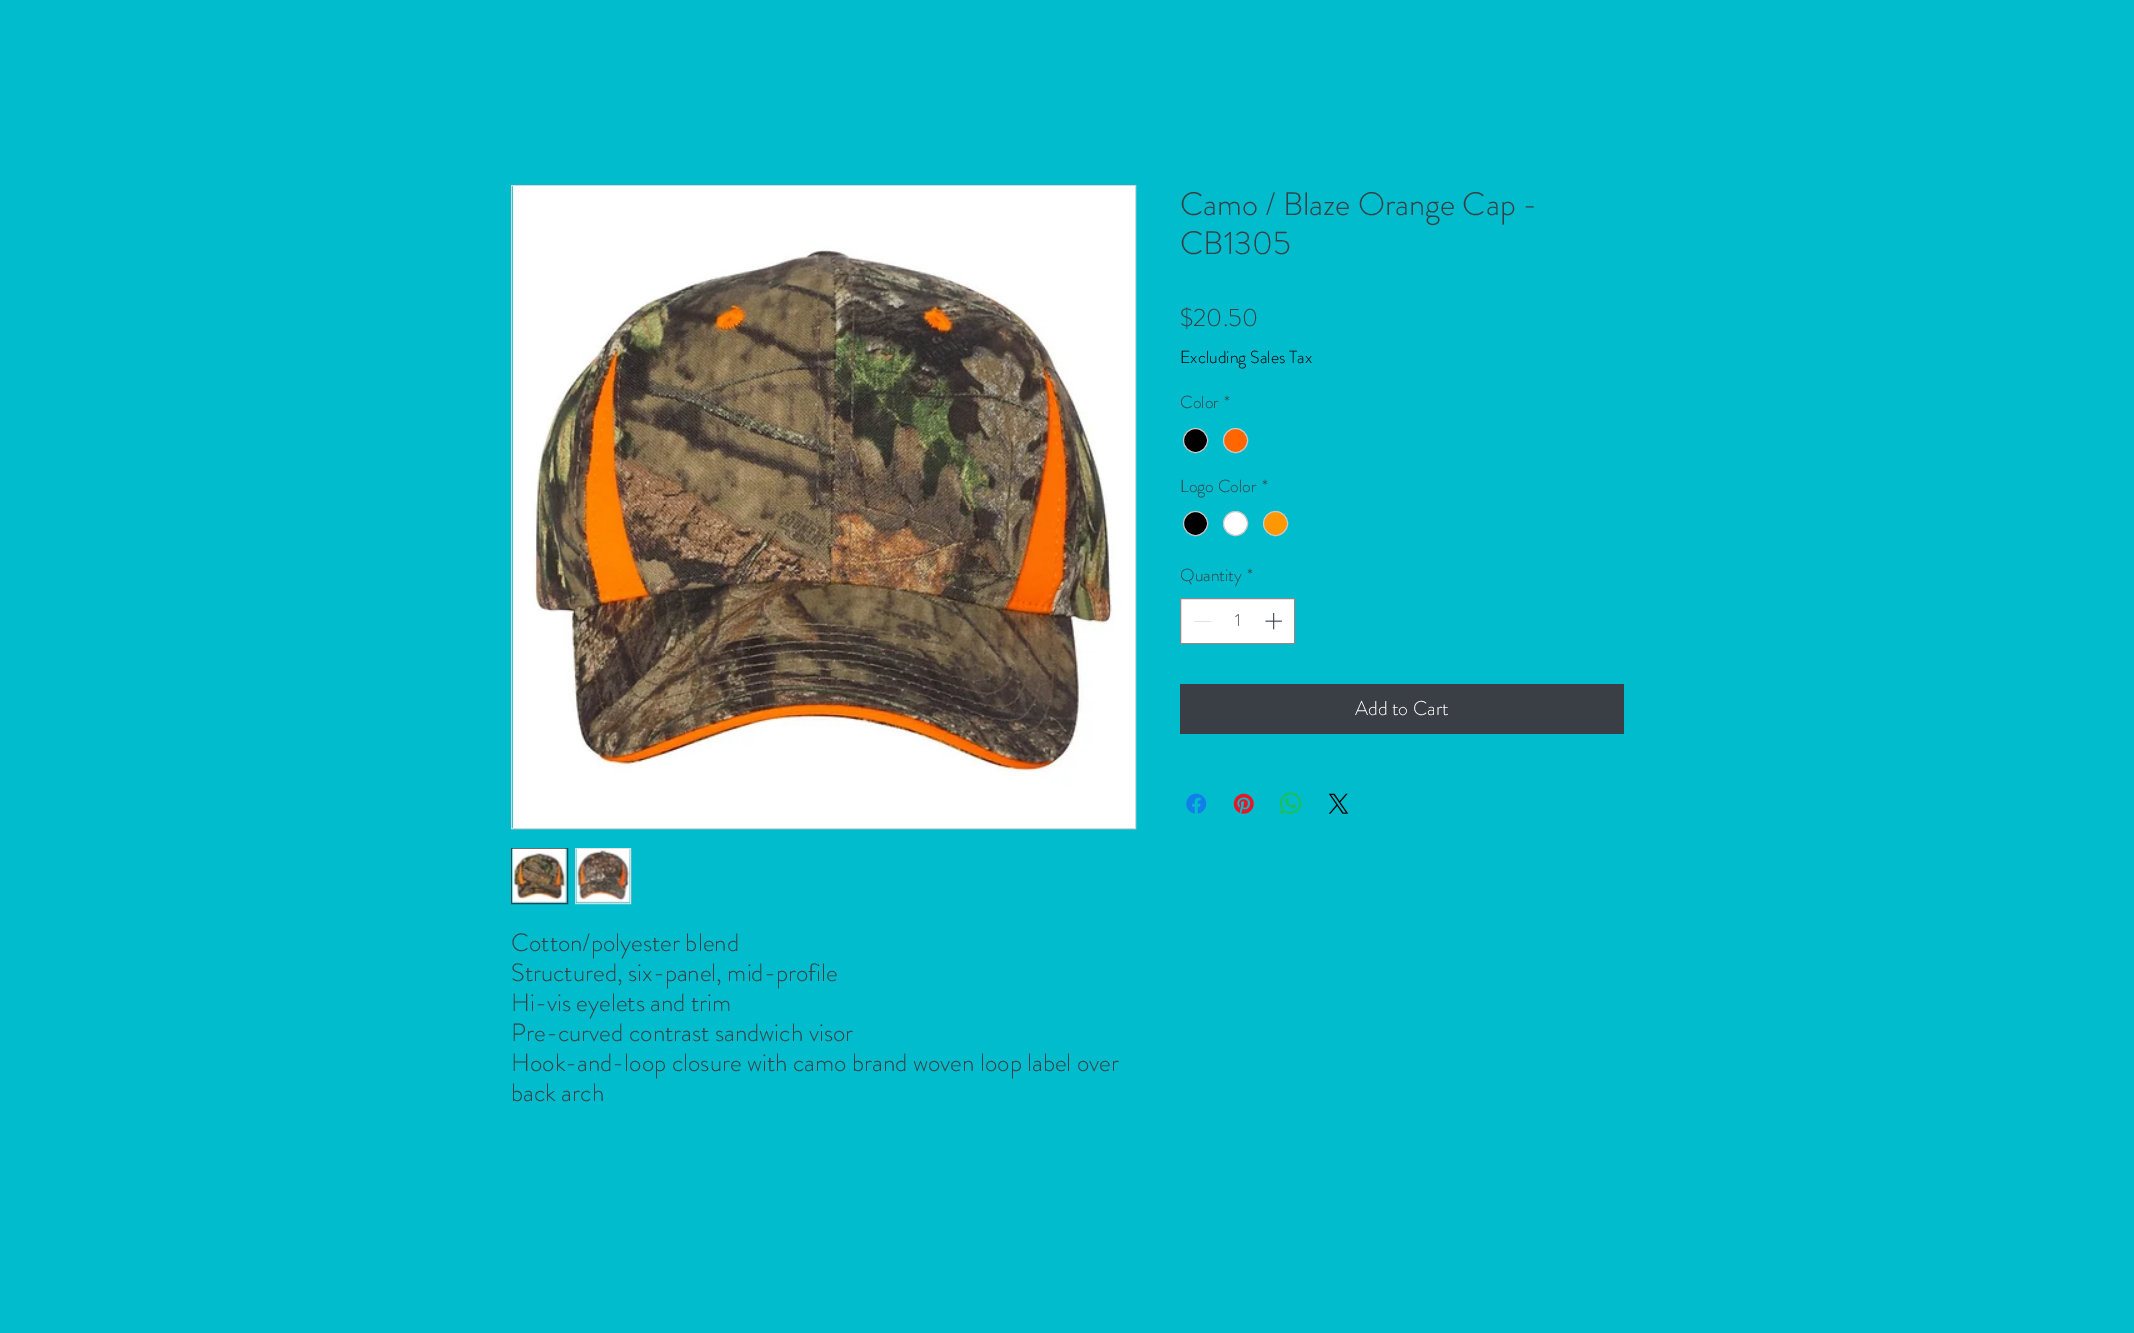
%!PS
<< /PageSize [2134 1333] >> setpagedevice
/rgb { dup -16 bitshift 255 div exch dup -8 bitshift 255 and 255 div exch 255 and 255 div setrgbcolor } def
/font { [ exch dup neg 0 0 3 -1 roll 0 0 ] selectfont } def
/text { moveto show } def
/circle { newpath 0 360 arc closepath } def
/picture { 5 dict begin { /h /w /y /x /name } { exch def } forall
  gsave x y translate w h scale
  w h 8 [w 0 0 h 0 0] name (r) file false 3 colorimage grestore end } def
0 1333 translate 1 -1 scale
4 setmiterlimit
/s1 { /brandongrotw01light-Light 32.5 font 16#393F44 rgb } def
/s2 { /brandongrotw01light-Light 25 font 16#393F44 rgb } def
/s3 { /brandongrotw01light-Light 17.5 font 16#000000 rgb } def
/s4 { /brandongrotw01light-Light 17.5 font 16#393F44 rgb } def
/s5 { /brandongrotw01light-Light 20 font 16#FFFFFF rgb } def
16#00BCCC rgb
0 0 2134 1333 rectfill
s1
(Camo / Blaze Orange Cap -) 1180 215 text
(CB1305) 1180 254 text
s2
($20.50) 1180 326 text
s3
(Excluding Sales Tax) 1180 363 text
s4
(Color) 1180 408 text
(*) 1224 408 text
16#000000 rgb
1195.5 440.5 12 circle gsave fill grestore
16#C9C9C9 rgb
stroke
16#FF6600 rgb
1235.5 440.5 12 circle gsave fill grestore
16#C9C9C9 rgb
stroke
s4
(Logo Color) 1180 492 text
(*) 1262 492 text
16#000000 rgb
1195.5 523.5 12 circle gsave fill grestore
16#C9C9C9 rgb
stroke
16#FFFFFF rgb
1235.5 523.5 12 circle gsave fill grestore
16#C9C9C9 rgb
stroke
16#FF9700 rgb
1275.5 523.5 12 circle gsave fill grestore
16#C9C9C9 rgb
stroke
s4
(Quantity) 1180 581 text
(*) 1247 581 text
16#FFFFFF rgb
1180.5 598.5 moveto 1294.5 598.5 lineto 1294.5 643.5 lineto 1180.5 643.5 lineto closepath gsave fill grestore
16#888C8F rgb
stroke
16#E3E3E3 rgb
1194 621 17 1 rectfill
s4
(1) 1235 626 text
(pic1.raw) 1265 612 17 18 picture
1180 684 444 50 rectfill
s5
(Add to Cart) 1355 715 text
(pic2.raw) 1186 793 21 21 picture
(pic3.raw) 1233 793 21 21 picture
(pic4.raw) 1280 792 22 22 picture
(pic5.raw) 1328 793 21 21 picture
16#D8D8D8 rgb
511.5 185.5 624 643 rectstroke
(pic6.raw) 513 186 622 642 picture
16#393F44 rgb
511.5 848.5 56 55 rectstroke
(pic7.raw) 512 848 55 55 picture
16#D8D8D8 rgb
575.5 848.5 55 55 rectstroke
(pic8.raw) 576 848 55 55 picture
s2
(Cotton/polyester blend) 511 951 text
(Structured, six-panel, mid-profile) 511 981 text
(Hi-vis eyelets and trim) 511 1011 text
(Pre-curved contrast sandwich visor) 511 1041 text
(Hook-and-loop closure with camo brand woven loop label over) 511 1071 text
(back arch) 511 1101 text
showpage
